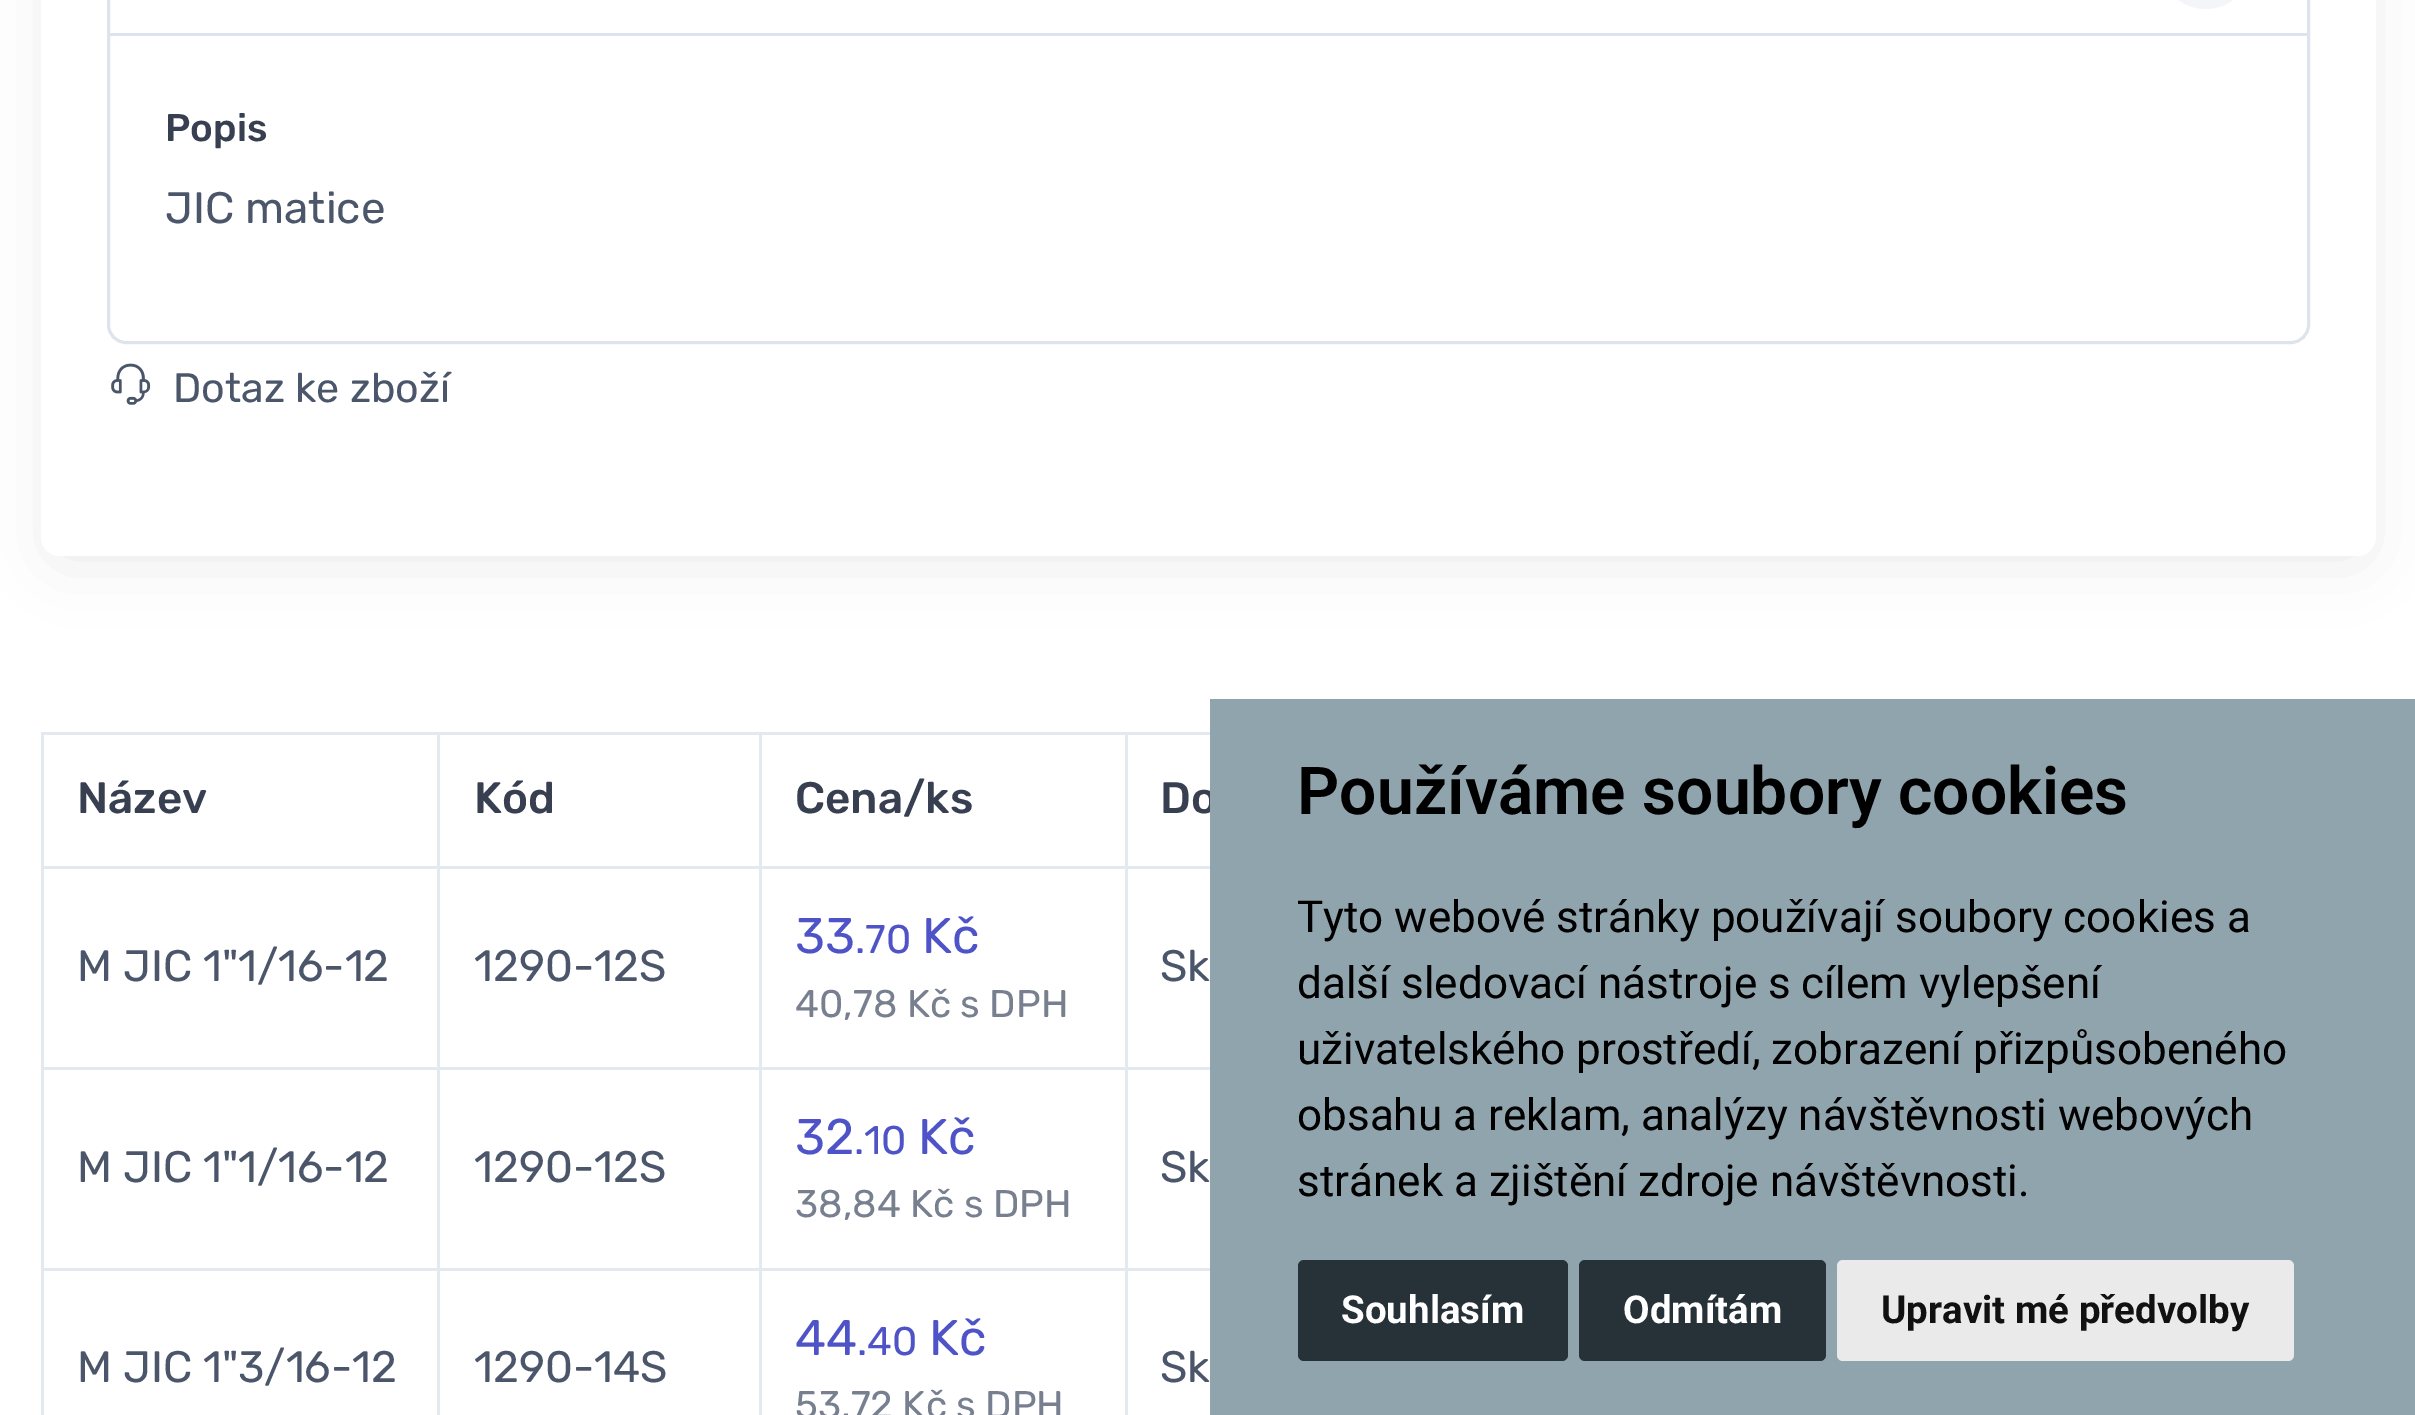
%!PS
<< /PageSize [2415 1415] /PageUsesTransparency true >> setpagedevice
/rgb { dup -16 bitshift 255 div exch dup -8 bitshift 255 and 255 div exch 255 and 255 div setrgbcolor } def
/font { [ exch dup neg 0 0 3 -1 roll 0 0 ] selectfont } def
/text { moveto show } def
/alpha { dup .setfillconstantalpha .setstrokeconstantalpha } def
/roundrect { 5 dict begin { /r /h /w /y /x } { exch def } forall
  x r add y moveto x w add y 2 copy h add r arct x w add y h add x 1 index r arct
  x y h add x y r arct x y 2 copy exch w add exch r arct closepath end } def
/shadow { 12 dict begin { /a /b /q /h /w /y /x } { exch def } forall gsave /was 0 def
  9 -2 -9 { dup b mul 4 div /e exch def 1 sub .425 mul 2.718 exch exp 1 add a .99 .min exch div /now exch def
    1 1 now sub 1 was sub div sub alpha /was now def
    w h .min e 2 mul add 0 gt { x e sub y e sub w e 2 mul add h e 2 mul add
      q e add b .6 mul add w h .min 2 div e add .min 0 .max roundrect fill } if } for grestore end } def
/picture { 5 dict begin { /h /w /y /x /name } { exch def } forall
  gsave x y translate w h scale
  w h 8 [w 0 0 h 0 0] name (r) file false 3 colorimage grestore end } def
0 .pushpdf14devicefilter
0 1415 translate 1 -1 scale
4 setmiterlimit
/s1 { /Rubik-Medium 38.5 font 16#373F50 rgb } def
/s2 { /Rubik-Regular 44 font 16#4B566B rgb } def
/s3 { /Rubik-Regular 41.25 font 16#4B566B rgb } def
/s4 { /Rubik-Medium 44 font 16#373F50 rgb } def
/s5 { /Rubik-Regular 50 font 16#4E54C8 rgb } def
/s6 { /Rubik-Regular 40 font 16#4E54C8 rgb } def
/s7 { /Rubik-Regular 38.5 font 16#788090 rgb } def
/s8 { /Roboto-SemiBold 66 font 16#000000 rgb } def
/s9 { /Roboto-Regular 44 font 16#000000 rgb } def
/s10 { /Roboto-Bold 38.5 font 16#FFFFFF rgb } def
/s11 { /Roboto-Bold 38.5 font 16#111111 rgb } def
16#FFFFFF rgb
0 0 2415 1415 rectfill
16#000000 rgb
58 -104 2302 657 3 33.5 0.1 shadow
16#FFFFFF rgb
41 -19 2335 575 19 roundrect fill
16#DDE4EB rgb
3 setlinewidth
108.5 -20.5 2200 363 17.5 roundrect stroke
110 33 2197 3 rectfill
16#F3F5F9 rgb
2206 9 moveto 2180 9 2159 -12 2159 -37 curveto 2159 -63 2180 -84 2206 -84 curveto 2231 -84 2252 -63 2252 -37 curveto 2252 -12 2231 9 2206 9 curveto closepath fill
s1
(Popis) 165 141 text
s2
(JIC matice) 165 223 text
(pic1.raw) 111 363 40 42 picture
s3
(Dotaz ke zboží) 173 402 text
16#E3E9EF rgb
41 732 1169 3 rectfill
s4
(Název) 77 813 text
(Kód) 474 813 text
(Cena/ks) 795 813 text
(Do) 1160 813 text
16#E3E9EF rgb
41 866 1169 3 rectfill
s2
(M JIC 1"1/16-12) 77 981 text
(1290-12S) 474 981 text
s5
(33) 795 953 text
s6
(.70) 855 953 text
s5
(Kč) 922 953 text
s7
(40,78 Kč s DPH) 795 1017 text
s2
(Sk) 1160 981 text
16#E3E9EF rgb
41 1067 1169 3 rectfill
s2
(M JIC 1"1/16-12) 77 1182 text
(1290-12S) 474 1182 text
s5
(32) 795 1154 text
s6
(.10) 854 1154 text
s5
(Kč) 918 1154 text
s7
(38,84 Kč s DPH) 795 1217 text
s2
(Sk) 1160 1182 text
16#E3E9EF rgb
41 1268 1169 3 rectfill
41 732 3 683 rectfill
s2
(M JIC 1"3/16-12) 77 1382 text
16#E3E9EF rgb
437 732 3 683 rectfill
s2
(1290-14S) 474 1382 text
16#E3E9EF rgb
759 732 3 683 rectfill
s5
(44) 795 1355 text
s6
(.40) 857 1355 text
s5
(Kč) 929 1355 text
s7
(53,72 Kč s DPH) 795 1418 text
16#E3E9EF rgb
1125 732 3 683 rectfill
s2
(Sk) 1160 1382 text
16#90A4AE rgb
1210 699 1205 716 rectfill
s8
(Používáme soubory cookies) 1297 814 text
s9
(Tyto webové stránky používají soubory cookies a) 1297 932 text
(další sledovací nástroje s cílem vylepšení) 1297 998 text
(uživatelského prostředí, zobrazení přizpůsobeného) 1297 1064 text
(obsahu a reklam, analýzy návštěvnosti webových) 1297 1130 text
(stránek a zjištění zdroje návštěvnosti.) 1297 1196 text
16#263238 rgb
1298 1260 270 101 6 roundrect fill
s10
(Souhlasím) 1341 1323 text
16#263238 rgb
1579 1260 247 101 6 roundrect fill
s10
(Odmítám) 1623 1323 text
16#EAEAEA rgb
1837 1260 457 101 6 roundrect fill
s11
(Upravit mé předvolby) 1881 1323 text
.poppdf14devicefilter showpage
